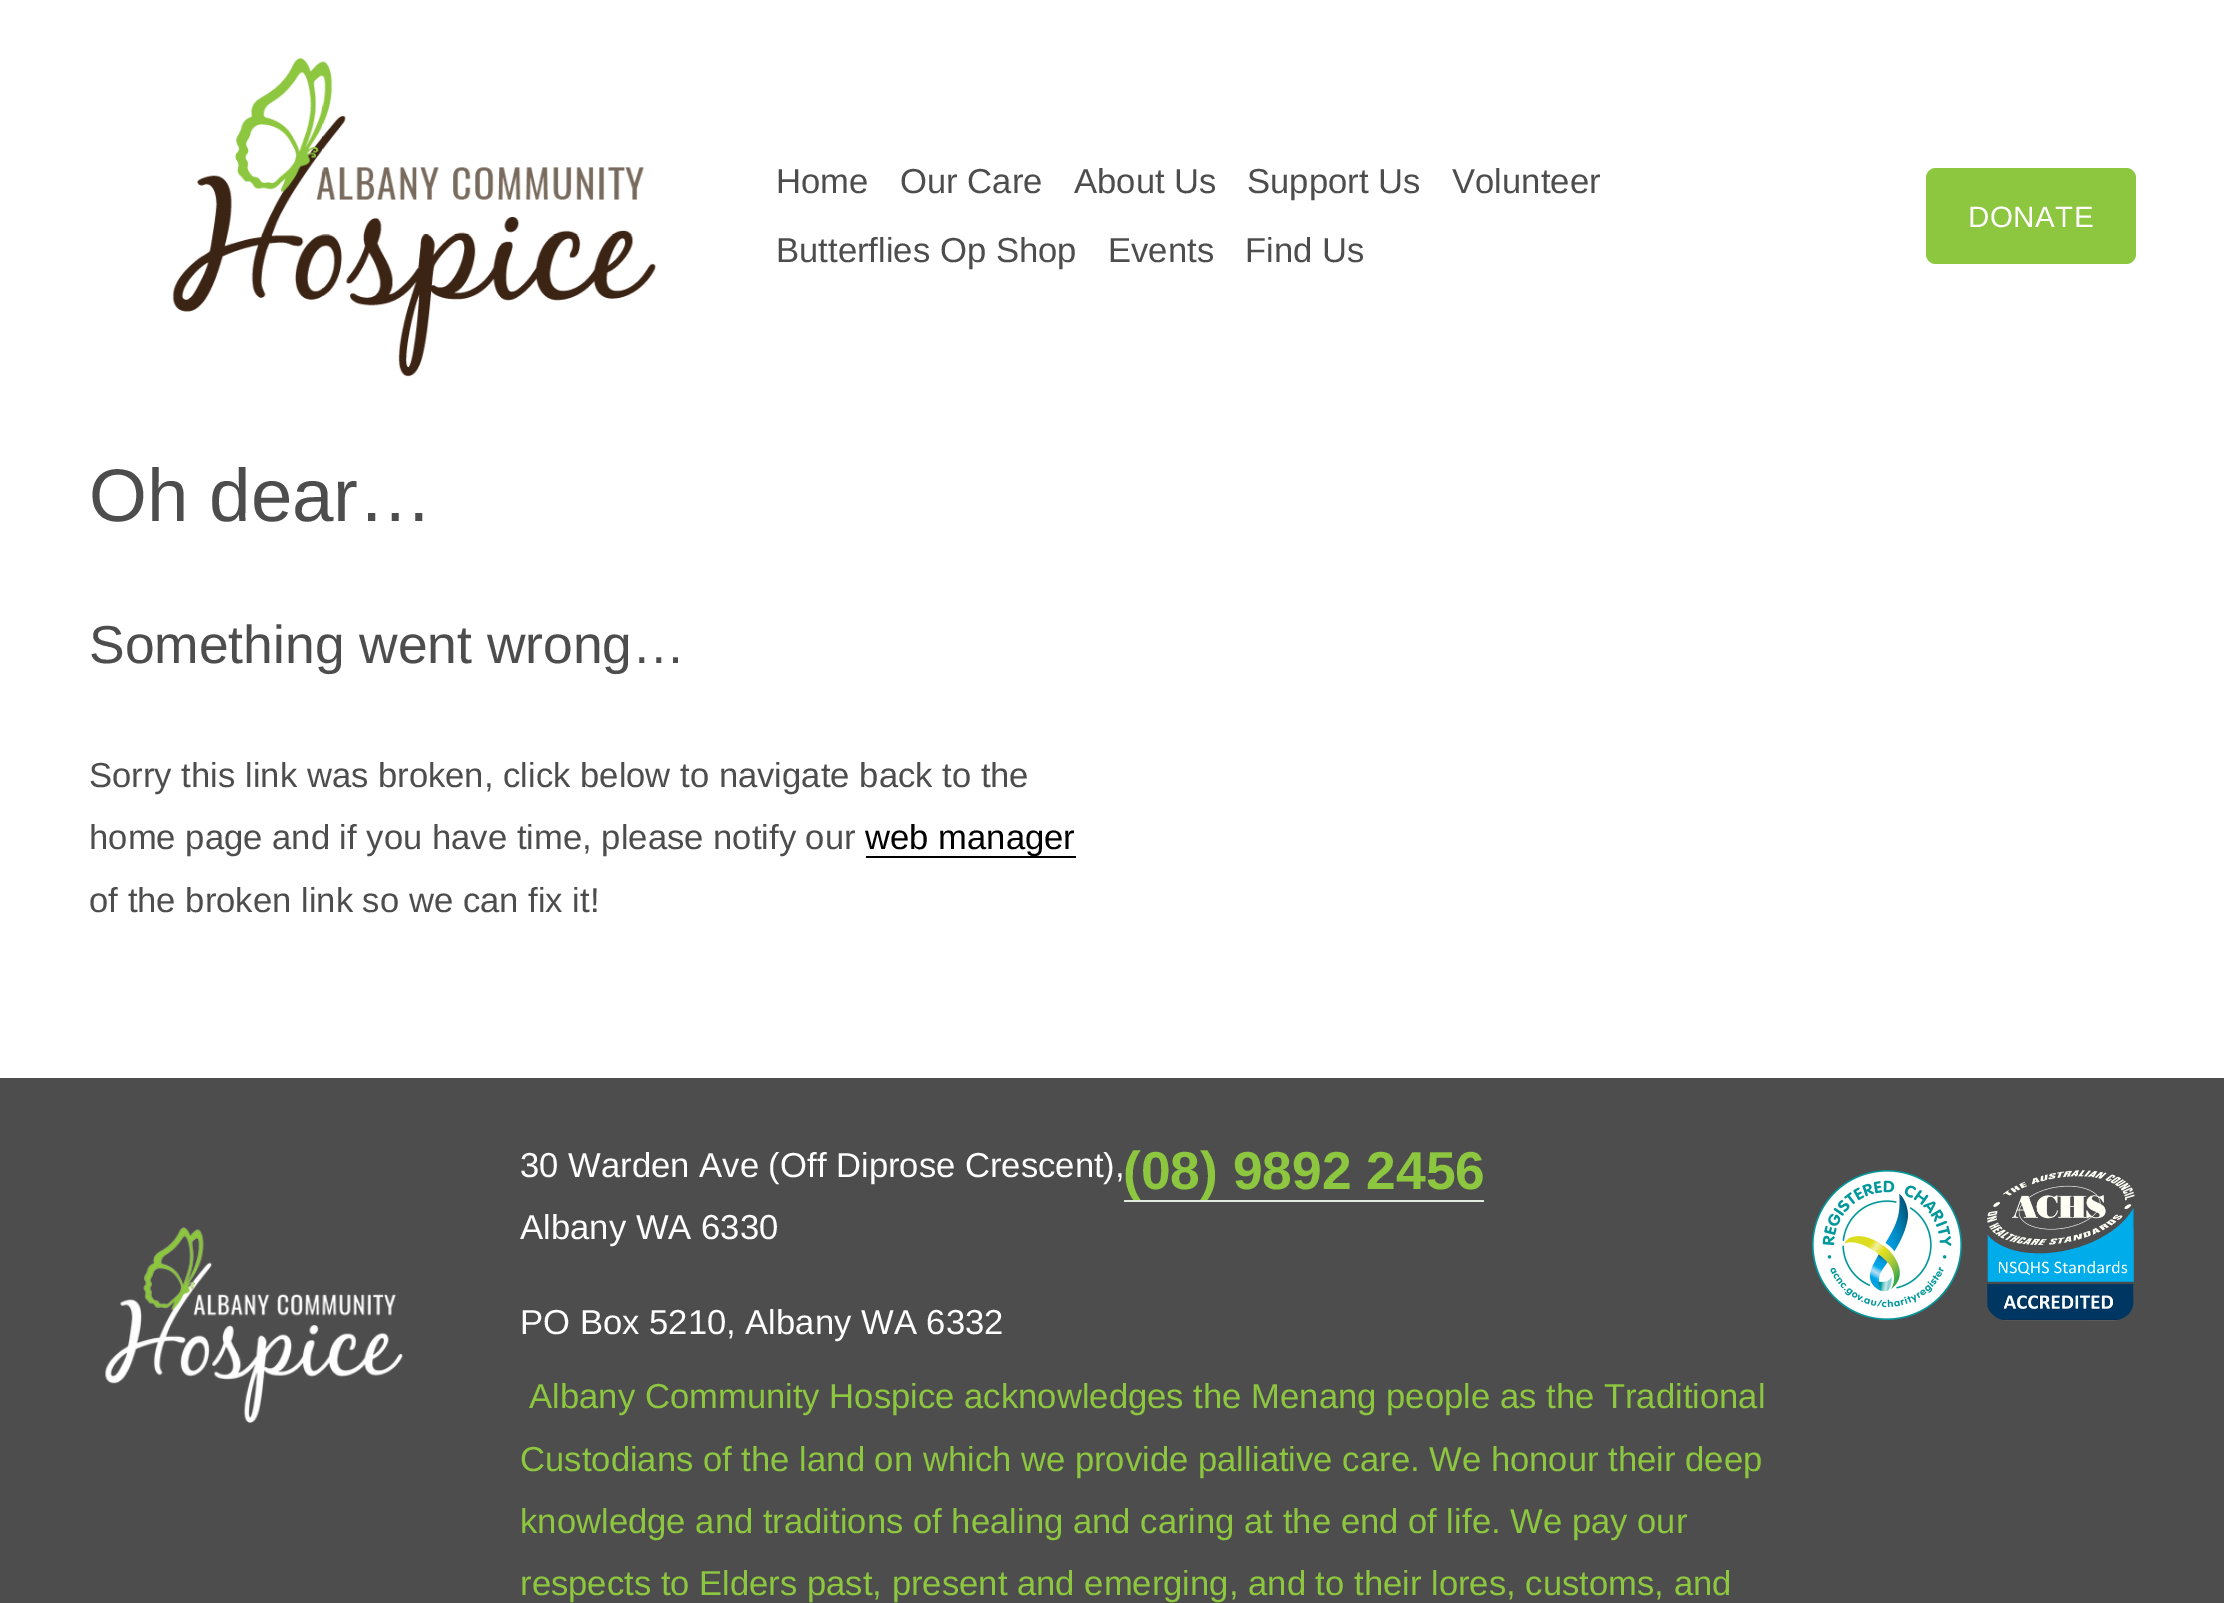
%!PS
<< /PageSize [2224 1603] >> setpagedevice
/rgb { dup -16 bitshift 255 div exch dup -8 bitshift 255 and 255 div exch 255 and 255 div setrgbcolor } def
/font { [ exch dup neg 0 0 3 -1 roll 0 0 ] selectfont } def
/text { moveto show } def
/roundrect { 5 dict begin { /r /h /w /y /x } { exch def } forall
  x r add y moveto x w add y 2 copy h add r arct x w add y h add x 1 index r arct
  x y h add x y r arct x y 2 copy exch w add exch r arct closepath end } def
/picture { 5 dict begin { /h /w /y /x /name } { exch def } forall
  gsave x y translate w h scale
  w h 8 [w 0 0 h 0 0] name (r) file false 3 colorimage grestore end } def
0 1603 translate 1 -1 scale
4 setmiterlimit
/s1 { /LiberationSans-Regular 34.65 font 16#4D4D4D rgb } def
/s2 { /LiberationSans-Regular 74.5 font 16#4D4D4D rgb } def
/s3 { /LiberationSans-Regular 53.4 font 16#4D4D4D rgb } def
/s4 { /LiberationSans-Regular 34.65 font 16#000000 rgb } def
/s5 { /LiberationSans-Regular 34.65 font 16#FFFFFF rgb } def
/s6 { /LiberationSans-Bold 53.4 font 16#8DC63F rgb } def
/s7 { /LiberationSans-Regular 34.65 font 16#8DC63F rgb } def
16#FFFFFF rgb
0 0 2224 1603 rectfill
(pic1.raw) 172 58 485 319 picture
s1
(Home) 776 193 text
(Our Care) 900 193 text
(About Us) 1074 193 text
(Support Us) 1247 193 text
(Volunteer) 1452 193 text
(Butterflies Op Shop) 776 262 text
(Events) 1108 262 text
(Find Us) 1245 262 text
16#8DC63F rgb
1926 168 210 96 10 roundrect fill
/LiberationSans-Regular 29.5 font
16#FFFFFF rgb
1968 227 moveto 0.5 0 (DONATE) ashow
s2
(Oh dear…) 89 521 text
s3
(Something went wrong…) 89 663 text
s1
(Sorry this link was broken, click below to navigate back to the) 89 787 text
(home page and if you have time, please notify our) 89 849 text
16#000000 rgb
866 856 210 2 rectfill
(web manager) 865 849 text
s1
(of the broken link so we can fix it!) 89 912 text
0 1078 2224 525 rectfill
(pic2.raw) 105 1227 298 196 picture
s5
(30 Warden Ave \(Off Diprose Crescent\),) 520 1177 text
(Albany WA 6330) 520 1239 text
(PO Box 5210, Albany WA 6332) 520 1334 text
16#E2EAE0 rgb
1124 1200 360 2 rectfill
s6
(\(08\) 9892 2456) 1123 1189 text
(pic3.raw) 1812 1170 150 150 picture
(pic4.raw) 1987 1170 148 151 picture
s7
(Albany Community Hospice acknowledges the Menang people as the Traditional) 529 1408 text
(Custodians of the land on which we provide palliative care. We honour their deep) 520 1471 text
(knowledge and traditions of healing and caring at the end of life. We pay our) 520 1533 text
(respects to Elders past, present and emerging, and to their lores, customs, and) 520 1595 text
showpage
